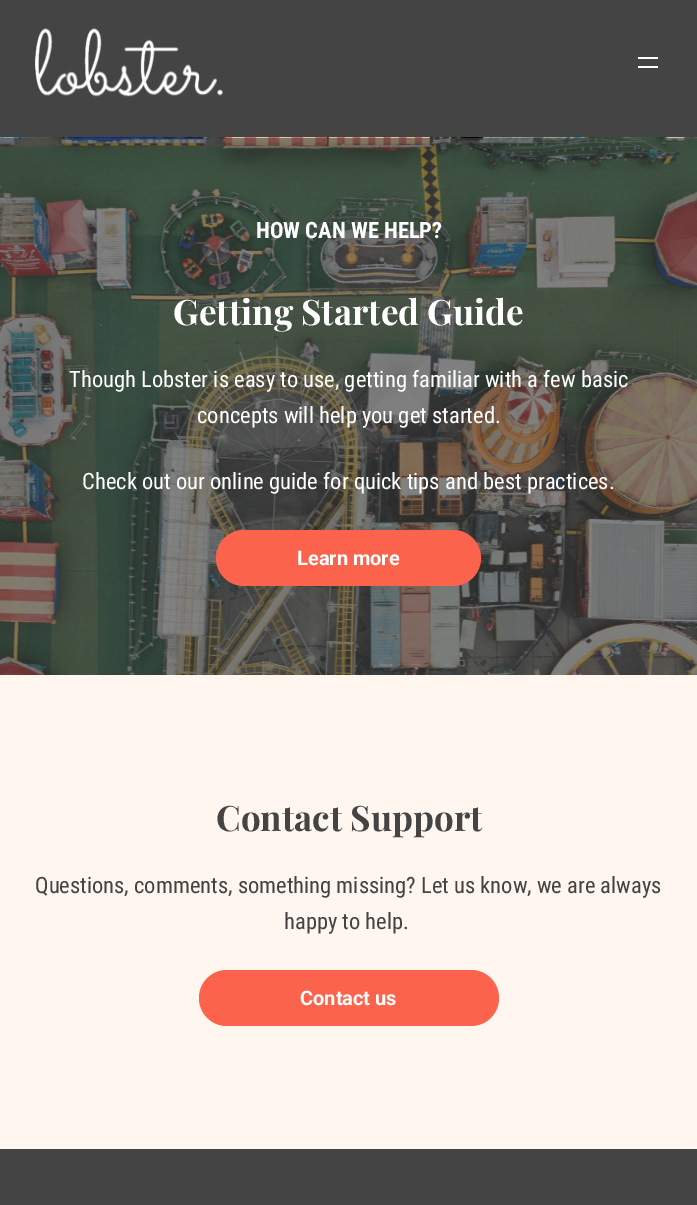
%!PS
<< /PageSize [697 1205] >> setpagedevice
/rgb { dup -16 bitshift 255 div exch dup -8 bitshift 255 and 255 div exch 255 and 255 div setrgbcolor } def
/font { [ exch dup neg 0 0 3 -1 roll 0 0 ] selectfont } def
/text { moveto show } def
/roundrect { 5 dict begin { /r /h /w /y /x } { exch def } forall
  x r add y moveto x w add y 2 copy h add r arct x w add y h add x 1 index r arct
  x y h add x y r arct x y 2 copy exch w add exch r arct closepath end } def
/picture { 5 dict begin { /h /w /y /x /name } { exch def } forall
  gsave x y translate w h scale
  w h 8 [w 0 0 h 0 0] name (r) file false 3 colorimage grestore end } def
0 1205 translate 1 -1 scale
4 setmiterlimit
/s1 { /RobotoCondensed-Bold 22.5 font 16#FFFFFF rgb } def
/s2 { /PlayfairDisplay-Bold 35 font 16#FFFFFF rgb } def
/s3 { /RobotoCondensed-Regular 22.5 font 16#FFFFFF rgb } def
/s4 { /Roboto-Bold 20 font 16#FFFFFF rgb } def
/s5 { /PlayfairDisplay-Bold 35 font 16#444444 rgb } def
/s6 { /RobotoCondensed-Regular 22.5 font 16#444444 rgb } def
16#FFF7EF rgb
0 0 697 1205 rectfill
16#444444 rgb
0 0 697 137 rectfill
(pic1.raw) 35 28 188 69 picture
16#FFFFFF rgb
638 57 20 2 rectfill
638 66 20 2 rectfill
(pic2.raw) 0 137 697 538 picture
s1
(HOW CAN WE HELP?) 256 238 text
s2
(Getting Started Guide) 173 325 text
s3
(Though Lobster is easy to use, getting familiar with a few basic) 69 387 text
(concepts will help you get started.) 197 423 text
(Check out our online guide for quick tips and best practices.) 82 489 text
16#FB634D rgb
216 530 265 56 28 roundrect fill
s4
(Learn more) 297 565 text
s5
(Contact Support) 216 831 text
s6
(Questions, comments, something missing? Let us know, we are always) 35 893 text
(happy to help.) 284 929 text
16#FB634D rgb
199 970 300 56 28 roundrect fill
s4
(Contact us) 300 1005 text
16#444444 rgb
0 1149 697 56 rectfill
showpage
